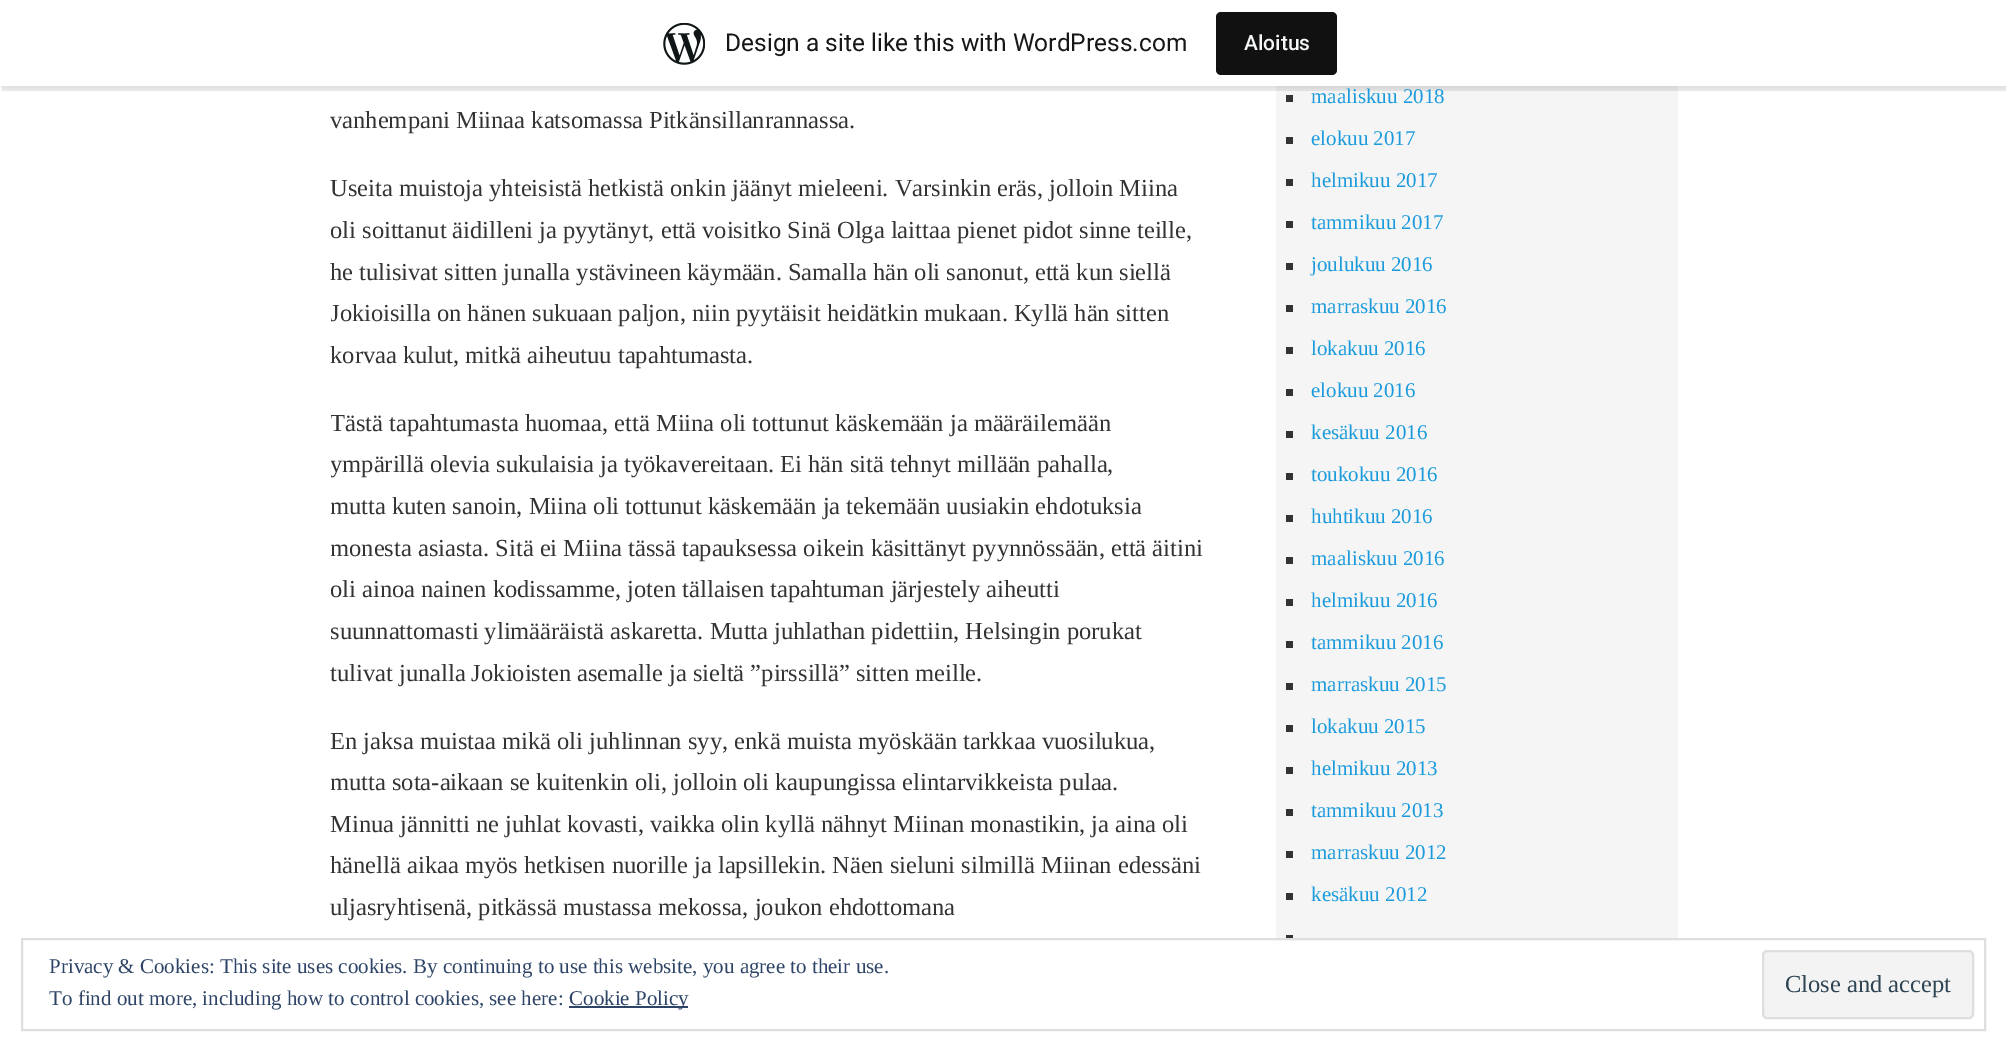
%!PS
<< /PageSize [2006 1051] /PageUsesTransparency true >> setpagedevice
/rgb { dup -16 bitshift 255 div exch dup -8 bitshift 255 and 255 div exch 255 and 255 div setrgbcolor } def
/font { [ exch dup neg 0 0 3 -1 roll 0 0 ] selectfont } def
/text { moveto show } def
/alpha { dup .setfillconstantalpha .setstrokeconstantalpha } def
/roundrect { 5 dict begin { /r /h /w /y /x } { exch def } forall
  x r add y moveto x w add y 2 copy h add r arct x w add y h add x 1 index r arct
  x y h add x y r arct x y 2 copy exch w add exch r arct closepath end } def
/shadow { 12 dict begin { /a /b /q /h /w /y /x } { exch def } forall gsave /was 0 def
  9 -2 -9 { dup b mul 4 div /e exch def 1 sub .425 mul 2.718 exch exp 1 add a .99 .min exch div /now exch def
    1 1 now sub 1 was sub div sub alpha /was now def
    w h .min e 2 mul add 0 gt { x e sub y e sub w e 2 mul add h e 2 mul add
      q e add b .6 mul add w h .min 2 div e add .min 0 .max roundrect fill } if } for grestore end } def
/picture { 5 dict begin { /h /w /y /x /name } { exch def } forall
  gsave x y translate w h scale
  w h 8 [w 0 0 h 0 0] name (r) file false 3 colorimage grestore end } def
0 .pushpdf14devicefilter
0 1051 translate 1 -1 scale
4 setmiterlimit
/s1 { /Roboto-Regular 24.5 font 16#171717 rgb } def
/s2 { /Roboto-Medium 21 font 16#F6F7F7 rgb } def
/s3 { /LiberationSerif-Regular 24.5 font 16#333333 rgb } def
/s4 { /LiberationSerif-Regular 21 font 16#1C9BDC rgb } def
/s5 { /LiberationSerif-Regular 21 font 16#2E4467 rgb } def
/s6 { /LiberationSerif-Regular 24.5 font 16#2E4453 rgb } def
16#FFFFFF rgb
0 0 2006 1051 rectfill
16#F5F5F5 rgb
1276 86 402 852 rectfill
16#000000 rgb
0 2 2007 86 0 2 0.05 shadow
0.08 alpha
2 86 moveto 2 91 lineto 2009 91 lineto 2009 5 lineto 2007 5 lineto 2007 86 lineto closepath fill
1 alpha
16#FFFFFF rgb
0 0 2006 86 rectfill
(pic1.raw) 663 23 42 42 picture
s1
(Design a site like this with WordPress.com) 725 51 text
16#111111 rgb
1216 12 121 63 5 roundrect fill
s2
(Aloitus) 1244 50 text
s3
(vanhempani Miinaa katsomassa Pitkänsillanrannassa.) 330 128 text
(Useita muistoja yhteisistä hetkistä onkin jäänyt mieleeni. Varsinkin eräs, jolloin Miina) 330 196 text
gsave
331 0 875 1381 rectclip
(oli soittanut äidilleni ja pyytänyt, että voisitko Sinä Olga laittaa pienet pidot sinne teille,) 330 238 text
grestore
(he tulisivat sitten junalla ystävineen käymään. Samalla hän oli sanonut, että kun siellä) 330 280 text
gsave
331 0 875 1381 rectclip
(Jokioisilla on hänen sukuaan paljon, niin pyytäisit heidätkin mukaan. Kyllä hän sitten) 330 321 text
grestore
(korvaa kulut, mitkä aiheutuu tapahtumasta.) 330 363 text
gsave
331 0 875 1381 rectclip
(Tästä tapahtumasta huomaa, että Miina oli tottunut käskemään ja määräilemään) 330 431 text
(ympärillä olevia sukulaisia ja työkavereitaan. Ei hän sitä tehnyt millään pahalla,) 330 472 text
(mutta kuten sanoin, Miina oli tottunut käskemään ja tekemään uusiakin ehdotuksia) 330 514 text
(monesta asiasta. Sitä ei Miina tässä tapauksessa oikein käsittänyt pyynnössään, että äitini) 330 556 text
(oli ainoa nainen kodissamme, joten tällaisen tapahtuman järjestely aiheutti) 330 597 text
(suunnattomasti ylimääräistä askaretta. Mutta juhlathan pidettiin, Helsingin porukat) 330 639 text
grestore
(tulivat junalla Jokioisten asemalle ja sieltä ”pirssillä” sitten meille.) 330 681 text
(En jaksa muistaa mikä oli juhlinnan syy, enkä muista myöskään tarkkaa vuosilukua,) 330 749 text
gsave
331 0 875 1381 rectclip
(mutta sota-aikaan se kuitenkin oli, jolloin oli kaupungissa elintarvikkeista pulaa.) 330 790 text
grestore
(Minua jännitti ne juhlat kovasti, vaikka olin kyllä nähnyt Miinan monastikin, ja aina oli) 330 832 text
(hänellä aikaa myös hetkisen nuorille ja lapsillekin. Näen sieluni silmillä Miinan edessäni) 330 873 text
(uljasryhtisenä, pitkässä mustassa mekossa, joukon ehdottomana) 330 915 text
1286 95 7 7 rectfill
s4
(maaliskuu 2018) 1311 103 text
16#333333 rgb
1286 137 7 7 rectfill
s4
(elokuu 2017) 1311 145 text
16#333333 rgb
1286 179 7 7 rectfill
s4
(helmikuu 2017) 1311 187 text
16#333333 rgb
1286 221 7 7 rectfill
s4
(tammikuu 2017) 1311 229 text
16#333333 rgb
1286 263 7 7 rectfill
s4
(joulukuu 2016) 1311 271 text
16#333333 rgb
1286 305 7 7 rectfill
s4
(marraskuu 2016) 1311 313 text
16#333333 rgb
1286 347 7 7 rectfill
s4
(lokakuu 2016) 1311 355 text
16#333333 rgb
1286 389 7 7 rectfill
s4
(elokuu 2016) 1311 397 text
16#333333 rgb
1286 431 7 7 rectfill
s4
(kesäkuu 2016) 1311 439 text
16#333333 rgb
1286 473 7 7 rectfill
s4
(toukokuu 2016) 1311 481 text
16#333333 rgb
1286 515 7 7 rectfill
s4
(huhtikuu 2016) 1311 523 text
16#333333 rgb
1286 557 7 7 rectfill
s4
(maaliskuu 2016) 1311 565 text
16#333333 rgb
1286 599 7 7 rectfill
s4
(helmikuu 2016) 1311 607 text
16#333333 rgb
1286 641 7 7 rectfill
s4
(tammikuu 2016) 1311 649 text
16#333333 rgb
1286 683 7 7 rectfill
s4
(marraskuu 2015) 1311 691 text
16#333333 rgb
1286 725 7 7 rectfill
s4
(lokakuu 2015) 1311 733 text
16#333333 rgb
1286 767 7 7 rectfill
s4
(helmikuu 2013) 1311 775 text
16#333333 rgb
1286 809 7 7 rectfill
s4
(tammikuu 2013) 1311 817 text
16#333333 rgb
1286 851 7 7 rectfill
s4
(marraskuu 2012) 1311 859 text
16#333333 rgb
1286 893 7 7 rectfill
s4
(kesäkuu 2012) 1311 901 text
16#333333 rgb
1286 935 7 3 rectfill
16#DEDEDE rgb
2 setlinewidth
22 939 1963 91 rectstroke
s5
(Privacy & Cookies: This site uses cookies. By continuing to use this website, you agree to their use.) 49 973 text
16#F3F3F3 rgb
1763 951 210 67 4 roundrect gsave fill grestore
16#DEDEDE rgb
stroke
s6
(Close and accept) 1785 992 text
s5
(To find out more, including how to control cookies, see here:) 49 1005 text
569 1006 119 2 rectfill
(Cookie Policy) 569 1005 text
.poppdf14devicefilter showpage
